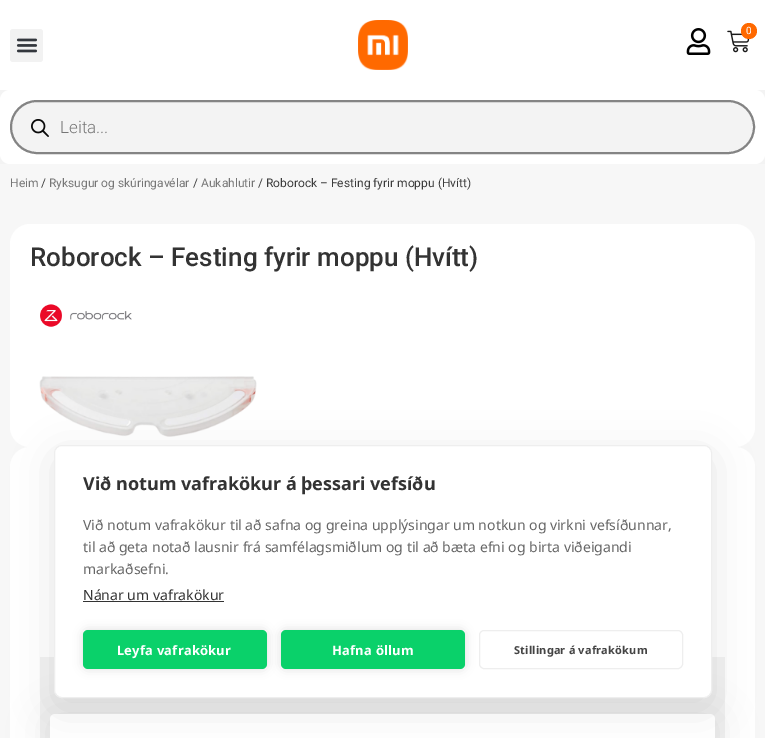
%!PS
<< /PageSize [765 738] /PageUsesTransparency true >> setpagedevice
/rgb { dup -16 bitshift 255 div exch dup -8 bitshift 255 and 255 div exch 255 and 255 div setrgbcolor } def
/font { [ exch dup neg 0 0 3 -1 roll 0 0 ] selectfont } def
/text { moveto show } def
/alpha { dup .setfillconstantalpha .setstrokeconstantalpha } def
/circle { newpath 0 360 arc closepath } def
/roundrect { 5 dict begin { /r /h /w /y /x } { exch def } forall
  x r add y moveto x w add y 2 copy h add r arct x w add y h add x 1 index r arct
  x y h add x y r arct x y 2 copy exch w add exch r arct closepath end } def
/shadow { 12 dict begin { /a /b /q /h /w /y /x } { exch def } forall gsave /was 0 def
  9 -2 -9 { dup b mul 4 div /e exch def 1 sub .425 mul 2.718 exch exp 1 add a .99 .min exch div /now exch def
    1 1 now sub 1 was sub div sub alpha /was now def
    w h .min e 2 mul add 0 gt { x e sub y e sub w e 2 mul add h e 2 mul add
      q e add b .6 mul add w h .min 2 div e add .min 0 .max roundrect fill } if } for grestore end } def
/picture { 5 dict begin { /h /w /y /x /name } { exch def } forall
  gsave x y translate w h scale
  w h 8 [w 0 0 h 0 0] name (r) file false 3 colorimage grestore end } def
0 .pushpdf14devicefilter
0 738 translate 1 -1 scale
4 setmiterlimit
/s1 { /Roboto-Regular 10 font 16#FFFFFF rgb } def
/s2 { /Roboto-Light 17 font 16#767676 rgb } def
/s3 { /Roboto-Regular 12 font 16#767676 rgb } def
/s4 { /Roboto-Regular 12 font 16#3C3C3C rgb } def
/s5 { /Roboto-Medium 26 font 16#333333 rgb } def
/s6 { /NotoSans-Bold 18 font 16#333333 rgb } def
/s7 { /NotoSans-Regular 14 font 16#666666 rgb } def
/s8 { /NotoSans-Regular 14 font 16#333333 rgb } def
16#F3F3F3 rgb
0 0 765 738 rectfill
16#FFFFFF rgb
0 0 765 90 rectfill
16#F2F2F2 rgb
10 29 33 33 3 roundrect fill
(pic1.raw) 16 38 22 15 picture
(pic2.raw) 358 20 50 50 picture
(pic3.raw) 686 28 25 27 picture
(pic4.raw) 727 30 23 23 picture
16#FF6900 rgb
749 31 8 circle fill
s1
(0) 746 34 text
0 90 765 74 10 roundrect fill
16#F3F3F3 rgb
11 101 743 52 26 roundrect gsave fill grestore
16#848484 rgb
2 setlinewidth
stroke
(pic5.raw) 31 119 18 18 picture
s2
(Leita...) 60 133 text
16#F7F7F7 rgb
0 164 765 574 rectfill
s3
(Heim) 10 187 text
s4
(/) 41 187 text
s3
(Ryksugur og skúringavélar) 49 187 text
s4
(/) 193 187 text
s3
(Aukahlutir) 201 187 text
s4
(/ Roborock – Festing fyrir moppu \(Hvítt\)) 258 187 text
16#FFFFFF rgb
10 224 745 223 20 roundrect fill
s5
(Roborock – Festing fyrir moppu \(Hvítt\)) 30 266 text
(pic6.raw) 40 304 92 23 picture
(pic7.raw) 39 376 218 61 picture
16#FFFFFF rgb
10 447 745 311 20 roundrect fill
16#F3F3F3 rgb
40 657 685 81 rectfill
16#242424 rgb
50 717 665 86 5 20 0.1 shadow
16#FFFFFF rgb
50 714 665 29 5 roundrect fill
16#000000 rgb
54 455 658 253 8 20 0.1 shadow
16#FFFFFF rgb
54.5 445.5 657 252 7.5 roundrect gsave fill grestore
16#EEEEEE rgb
1 setlinewidth
stroke
s6
(Við notum vafrakökur á þessari vefsíðu) 83 490 text
s7
(Við notum vafrakökur til að safna og greina upplýsingar um notkun og virkni vefsíðunnar,) 83 530 text
(til að geta notað lausnir frá samfélagsmiðlum og til að bæta efni og birta viðeigandi) 83 552 text
(markaðsefni.) 83 574 text
s8
(Nánar um vafrakökur) 83 600 text
83 601 141 1 rectfill
16#000000 rgb
83 630 184 39 5 5 0.12 shadow
16#0AD16A rgb
83 630 184 39 5 roundrect fill
/NotoSans-Bold 13 font
16#FFFFFF rgb
117 655 moveto 0.2 0 (Leyfa vafrakökur) ashow
16#000000 rgb
281 630 184 39 5 5 0.12 shadow
16#0AD16A rgb
281 630 184 39 5 roundrect fill
16#FFFFFF rgb
332 655 moveto 0.2 0 (Hafna öllum) ashow
16#EEEEEE rgb
479.5 630.5 203 38 4.5 roundrect stroke
/NotoSans-Bold 11 font
16#444444 rgb
514 654 moveto 0.2 0 (Stillingar á vafrakökum) ashow
.poppdf14devicefilter showpage
